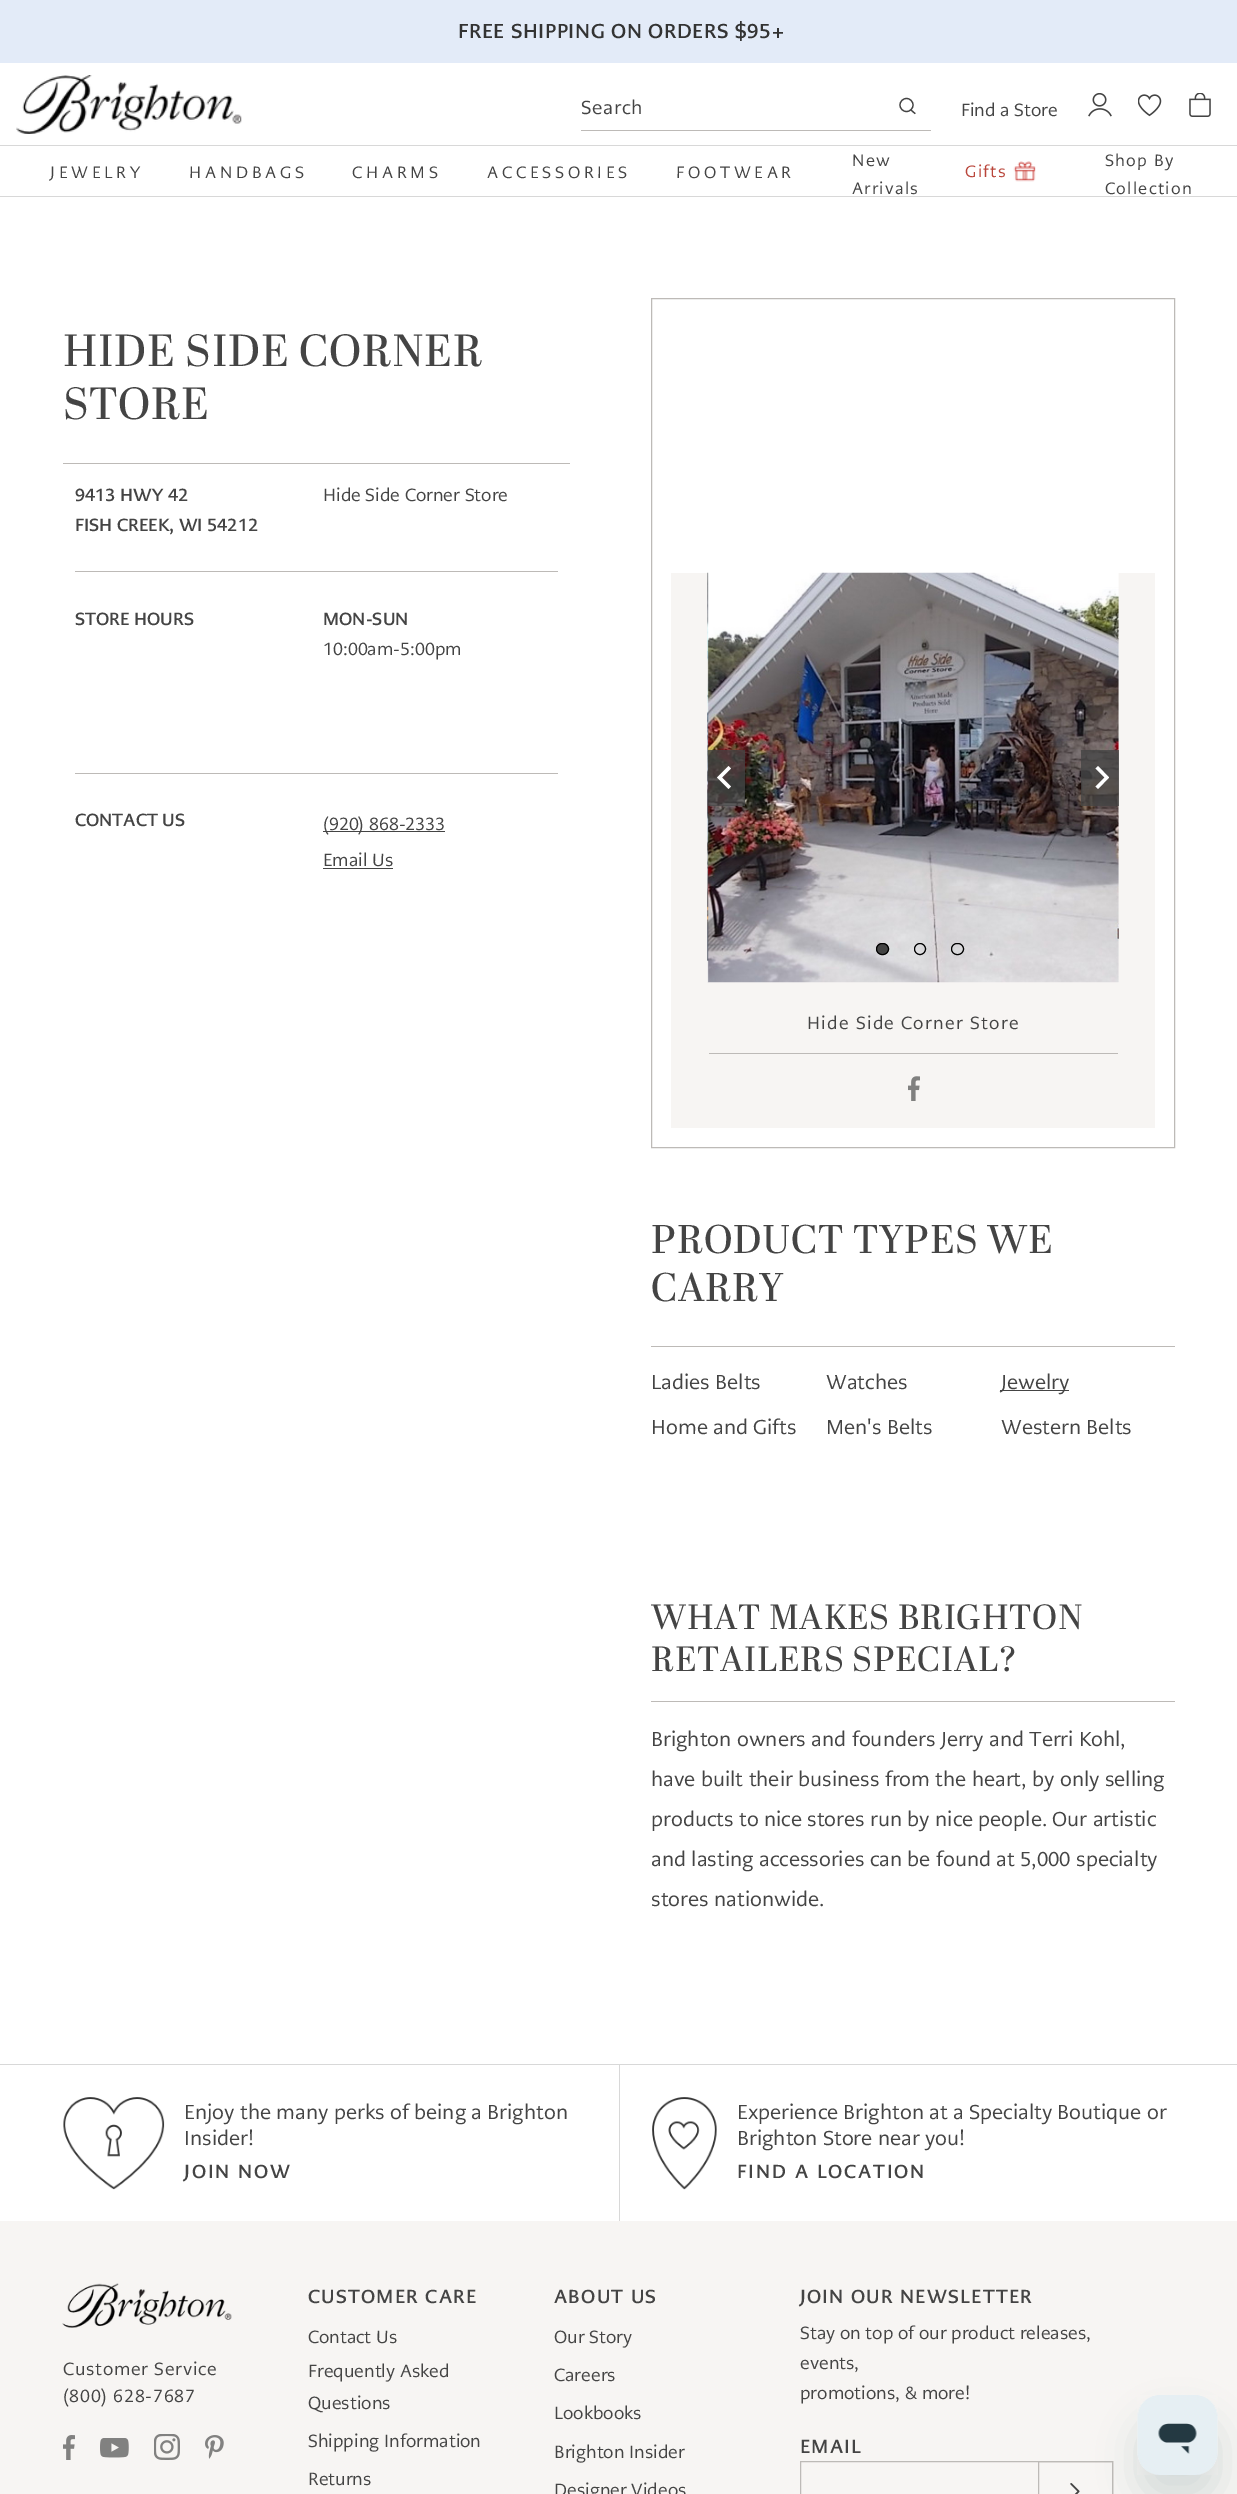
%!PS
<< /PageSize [1237 2494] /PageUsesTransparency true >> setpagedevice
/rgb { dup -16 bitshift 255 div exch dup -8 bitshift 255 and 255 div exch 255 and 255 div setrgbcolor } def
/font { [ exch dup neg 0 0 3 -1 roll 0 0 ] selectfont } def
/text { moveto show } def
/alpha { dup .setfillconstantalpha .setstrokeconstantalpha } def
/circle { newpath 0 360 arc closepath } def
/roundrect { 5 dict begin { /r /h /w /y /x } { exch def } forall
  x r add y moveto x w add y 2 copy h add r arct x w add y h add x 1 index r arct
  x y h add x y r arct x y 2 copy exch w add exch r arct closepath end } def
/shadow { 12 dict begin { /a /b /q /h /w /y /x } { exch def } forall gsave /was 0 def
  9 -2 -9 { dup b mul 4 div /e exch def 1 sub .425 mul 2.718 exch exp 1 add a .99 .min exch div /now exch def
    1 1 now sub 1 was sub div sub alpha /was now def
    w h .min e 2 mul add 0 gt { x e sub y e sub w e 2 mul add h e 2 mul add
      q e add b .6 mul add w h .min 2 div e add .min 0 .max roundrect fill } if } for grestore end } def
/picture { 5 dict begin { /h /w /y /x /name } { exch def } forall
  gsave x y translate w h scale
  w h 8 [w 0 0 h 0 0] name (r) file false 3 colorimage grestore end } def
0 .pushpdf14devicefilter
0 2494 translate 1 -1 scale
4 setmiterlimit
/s1 { /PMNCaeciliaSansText-Regular 17.5 font 16#444444 rgb } def
/s2 { /PMNCaeciliaSansText-Bold 17.5 font 16#444444 rgb } def
/s3 { /PMNCaeciliaSansText-Regular 20 font 16#444444 rgb } def
16#FFFFFF rgb
0 0 1237 2494 rectfill
16#E3EBF8 rgb
0 0 1237 63 rectfill
/PMNCaeciliaSansText-Bold 20 font
16#333333 rgb
458 38 moveto 0.6 0 (FREE SHIPPING ON ORDERS $95+) ashow
16#D8D8D8 rgb
0 196 1237 1 rectfill
(pic1.raw) 16 75 226 59 picture
16#BDBAB7 rgb
581 130 350 1 rectfill
/PMNCaeciliaSansText-Regular 18.75 font
16#444444 rgb
581 114 moveto 0.6 0 (Search) ashow
1.2 setlinewidth
906.5 105 6.5 circle stroke
1 setlinecap
911 110 moveto 915 113.5 lineto stroke
s1
(Find a Store) 961 116 text
(pic2.raw) 1088 93 24 24 picture
(pic3.raw) 1138 94 24 23 picture
(pic4.raw) 1189 93 22 24 picture
16#D8D8D8 rgb
0 145 1237 1 rectfill
/PMNCaeciliaSansText-Regular 16.25 font
16#444444 rgb
50 178 moveto 3.75 0 (JEWELRY) ashow
189 178 moveto 3.75 0 (HANDBAGS) ashow
352 178 moveto 3.75 0 (CHARMS) ashow
487 178 moveto 3.75 0 (ACCESSORIES) ashow
676 178 moveto 3.75 0 (FOOTWEAR) ashow
852 166 moveto 1.25 0 (New) ashow
852 194 moveto 1.25 0 (Arrivals) ashow
16#B9453A rgb
965 177 moveto 1.25 0 (Gifts) ashow
(pic5.raw) 1013 161 23 21 picture
16#444444 rgb
1105 166 moveto 1.25 0 (Shop By) ashow
1105 194 moveto 1.25 0 (Collection) ashow
16#BDBAB7 rgb
63 463 507 1 rectfill
/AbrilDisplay-Regular 45 font
16#444444 rgb
63 366 moveto 0.75 0 (HIDE SIDE CORNER) ashow
63 419 moveto 0.75 0 (STORE) ashow
16#BDBAB7 rgb
75 571 483 1 rectfill
s2
(9413 HWY 42) 75 501 text
(FISH CREEK, WI 54212) 75 531 text
s1
(Hide Side Corner Store) 323 501 text
16#BDBAB7 rgb
75 773 483 1 rectfill
s2
(STORE HOURS) 75 625 text
(MON-SUN) 323 625 text
s1
(10:00am-5:00pm) 323 655 text
s2
(CONTACT US) 75 826 text
323 831 122 1 rectfill
s1
(\(920\) 868-2333) 323 830 text
(Email Us) 323 866 text
323 868 70 1 rectfill
16#BDBAB7 rgb
1 setlinewidth
0 setlinecap
651.5 298.5 523 849 rectstroke
16#F7F5F3 rgb
671 573 484 555 rectfill
(pic6.raw) 707 572 412 411 picture
(pic7.raw) 707 572 2 410 picture
0.8 alpha
16#444444 rgb
708 750 37 56 rectfill
1 alpha
16#FFFFFF rgb
717 777.5 moveto 728.5 789 lineto 731 786.5 lineto 722 777.5 lineto 731 768.5 lineto 728.5 766 lineto closepath fill
0.8 alpha
16#444444 rgb
1081 750 38 56 rectfill
1 alpha
16#FFFFFF rgb
1109 777.5 moveto 1098 766 lineto 1095.5 768.5 lineto 1104.5 777.5 lineto 1095.5 786.5 lineto 1098 789 lineto closepath fill
16#444444 rgb
876.5 943.5 12 11 5.5 roundrect gsave fill grestore
16#000000 rgb
stroke
920 949 5.5 circle stroke
951.5 943.5 12 11 5.5 roundrect stroke
16#444444 rgb
807 1029 moveto 1.25 0 (Hide Side Corner Store) ashow
16#BDBAB7 rgb
709 1053 409 1 rectfill
(pic8.raw) 908 1076 12 25 picture
651 1346 524 1 rectfill
/AbrilDisplay-Regular 40 font
16#444444 rgb
651 1253 moveto 0.75 0 (PRODUCT TYPES WE) ashow
651 1301 moveto 0.75 0 (CARRY) ashow
s3
(Ladies Belts) 651 1389 text
(Watches) 826 1389 text
1000 1390 69 1 rectfill
(Jewelry) 1001 1389 text
(Home and Gifts) 651 1434 text
(Men's Belts) 826 1434 text
(Western Belts) 1001 1434 text
16#BDBAB7 rgb
651 1701 524 1 rectfill
/AbrilDisplay-Regular 35 font
16#444444 rgb
651 1629 moveto 0.75 0 (WHAT MAKES BRIGHTON) ashow
651 1671 moveto 0.75 0 (RETAILERS SPECIAL?) ashow
s3
(Brighton owners and founders Jerry and Terri Kohl,) 651 1746 text
(have built their business from the heart, by only selling) 651 1786 text
(products to nice stores run by nice people. Our artistic) 651 1826 text
(and lasting accessories can be found at 5,000 specialty) 651 1866 text
(stores nationwide.) 651 1906 text
16#D8D8D8 rgb
0 2064 1237 1 rectfill
(pic9.raw) 63 2097 102 93 picture
s3
(Enjoy the many perks of being a Brighton) 184 2119 text
(Insider!) 184 2145 text
/PMNCaeciliaSansText-Bold 18.75 font
184 2178 moveto 1.9 0 (JOIN NOW) ashow
16#D8D8D8 rgb
619 2065 1 156 rectfill
(pic10.raw) 652 2097 65 93 picture
s3
(Experience Brighton at a Specialty Boutique or) 737 2119 text
(Brighton Store near you!) 737 2145 text
/PMNCaeciliaSansText-Bold 18.75 font
737 2178 moveto 1.9 0 (FIND A LOCATION) ashow
16#F7F5F3 rgb
0 2221 1237 273 rectfill
(pic11.raw) 62 2283 170 45 picture
/PMNCaeciliaSansText-Regular 17.5 font
16#444444 rgb
63 2375 moveto 0.75 0 (Customer Service) ashow
63 2402 moveto 0.75 0 (\(800\) 628-7687) ashow
(pic12.raw) 63 2435 12 25 picture
(pic13.raw) 100 2438 29 20 picture
(pic14.raw) 154 2434 26 26 picture
(pic15.raw) 205 2435 19 24 picture
/PMNCaeciliaSansText-Bold 18.75 font
308 2303 moveto 1.25 0 (CUSTOMER CARE) ashow
s1
(Contact Us) 308 2343 text
(Frequently Asked) 308 2377 text
(Questions) 308 2409 text
(Shipping Information) 308 2447 text
(Returns) 308 2485 text
/PMNCaeciliaSansText-Bold 18.75 font
554 2303 moveto 1.25 0 (ABOUT US) ashow
s1
(Our Story) 554 2343 text
(Careers) 554 2381 text
(Lookbooks) 554 2419 text
(Brighton Insider) 554 2458 text
(Designer Videos) 554 2496 text
/PMNCaeciliaSansText-Bold 18.75 font
800 2303 moveto 1.25 0 (JOIN OUR NEWSLETTER) ashow
s1
(Stay on top of our product releases,) 800 2339 text
(events,) 800 2369 text
(promotions, & more!) 800 2399 text
/PMNCaeciliaSansText-Bold 18.75 font
800 2453 moveto 1.25 0 (EMAIL) ashow
16#BDBAB7 rgb
800.5 2461.5 312 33 rectstroke
1038.5 2461.5 74 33 rectstroke
(pic16.raw) 1070 2483 10 11 picture
16#17494D rgb
1138 2420 80 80 23 19 0.15 shadow
(pic17.raw) 1137 2395 81 80 picture
.poppdf14devicefilter showpage
